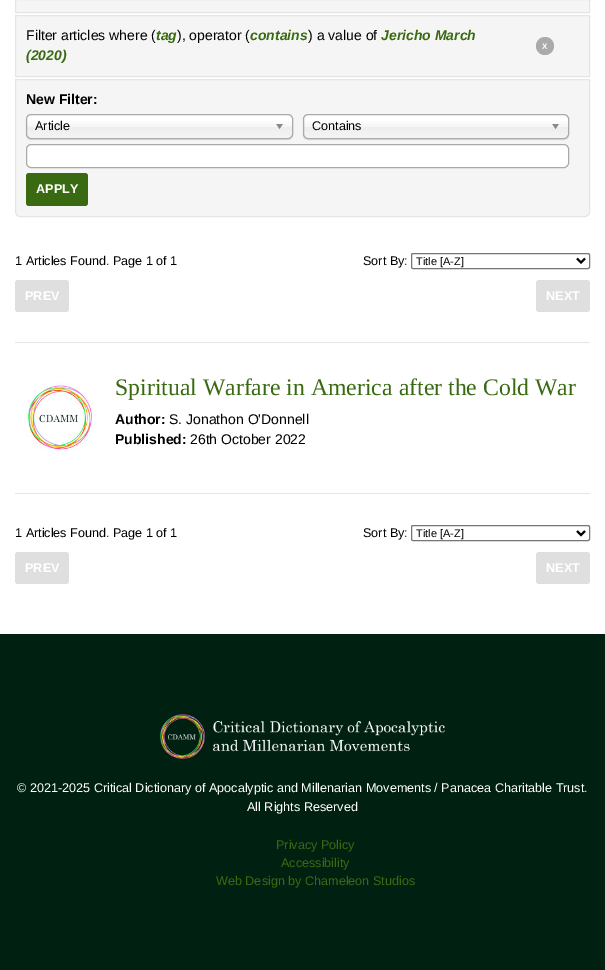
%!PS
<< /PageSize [605 970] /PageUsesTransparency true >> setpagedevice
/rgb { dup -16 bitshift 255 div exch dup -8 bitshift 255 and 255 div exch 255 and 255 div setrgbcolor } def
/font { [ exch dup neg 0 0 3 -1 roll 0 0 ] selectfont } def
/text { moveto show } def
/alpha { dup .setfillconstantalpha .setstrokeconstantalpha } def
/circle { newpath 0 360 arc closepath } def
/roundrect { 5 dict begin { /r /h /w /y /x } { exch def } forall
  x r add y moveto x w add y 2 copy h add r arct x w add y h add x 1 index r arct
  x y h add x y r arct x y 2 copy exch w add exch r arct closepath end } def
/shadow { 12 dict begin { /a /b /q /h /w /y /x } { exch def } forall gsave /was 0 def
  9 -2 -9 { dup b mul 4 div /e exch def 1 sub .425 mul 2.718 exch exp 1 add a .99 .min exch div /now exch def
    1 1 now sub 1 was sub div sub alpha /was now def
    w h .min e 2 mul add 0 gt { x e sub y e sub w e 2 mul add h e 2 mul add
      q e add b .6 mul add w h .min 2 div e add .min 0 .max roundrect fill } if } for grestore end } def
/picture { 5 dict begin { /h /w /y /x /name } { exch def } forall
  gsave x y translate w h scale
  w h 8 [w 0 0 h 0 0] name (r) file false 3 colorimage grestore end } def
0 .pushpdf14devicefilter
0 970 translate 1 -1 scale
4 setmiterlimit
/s1 { /LiberationSans-Regular 14 font 16#000000 rgb } def
/s2 { /LiberationSans-BoldItalic 14 font 16#396A11 rgb } def
/s3 { /LiberationSans-Bold 8 font 16#FFFFFF rgb } def
/s4 { /LiberationSans-Bold 14 font 16#000000 rgb } def
/s5 { /LiberationSans-Regular 12.6 font 16#000000 rgb } def
/s6 { /LiberationSans-Bold 12.6 font 16#FFFFFF rgb } def
/s7 { /LiberationSans-Regular 11 font 16#000000 rgb } def
/s8 { /LiberationSerif-Regular 23.75 font 16#396A11 rgb } def
/s9 { /LiberationSans-Regular 12.6 font 16#FFFFFF rgb } def
/s10 { /LiberationSans-Regular 12.6 font 16#396A11 rgb } def
16#FFFFFF rgb
0 0 605 970 rectfill
16#F5F5F5 rgb
15.5 -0.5 moveto 589.5 -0.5 lineto 589.5 12.5 lineto 15.5 12.5 lineto closepath gsave fill grestore
16#E5E5E5 rgb
stroke
16#F5F5F5 rgb
15.5 15.5 moveto 589.5 15.5 lineto 589.5 76.5 lineto 15.5 76.5 lineto closepath gsave fill grestore
16#E5E5E5 rgb
stroke
s1
(Filter articles where \() 26 40 text
s2
(tag) 156 40 text
s1
(\), operator \() 177 40 text
s2
(contains) 250 40 text
s1
(\) a value of) 308 40 text
s2
(Jericho March) 381 40 text
(\(2020\)) 26 60 text
16#AAAAAA rgb
545 46 9 circle fill
s3
(X) 542 49 text
16#F5F5F5 rgb
15.5 79.5 moveto 589.5 79.5 lineto 589.5 212 lineto 589.5 214.5 587.5 216.5 585 216.5 curveto 20 216.5 lineto 17.5 216.5 15.5 214.5 15.5 212 curveto closepath gsave fill grestore
16#E5E5E5 rgb
stroke
s4
(New Filter:) 26 104 text
26 115 267 25 5 0.5 0.1 shadow
gsave 27 115 265 23 4 roundrect clip newpath
<< /ShadingType 2 /ColorSpace /DeviceRGB /Coords [160 115 160 138] /Extend [true true] /Function << /FunctionType 3 /Domain [0 1] /Functions [<< /FunctionType 2 /Domain [0 1] /C0 [1 1 1] /C1 [1 1 1] /N 1 >> << /FunctionType 2 /Domain [0 1] /C0 [1 1 1] /C1 [0.965 0.965 0.965] /N 1 >> << /FunctionType 2 /Domain [0 1] /C0 [0.965 0.965 0.965] /C1 [0.933 0.933 0.933] /N 1 >> << /FunctionType 2 /Domain [0 1] /C0 [0.933 0.933 0.933] /C1 [0.957 0.957 0.957] /N 1 >>] /Bounds [0.2 0.5 0.52] /Encode [0 1 0 1 0 1 0 1] >> >> shfill grestore
16#AAAAAA rgb
26.5 114.5 266 24 4.5 roundrect stroke
s5
(Article) 35 130 text
(pic1.raw) 276 124 7 6 picture
303 115 266 25 5 0.5 0.1 shadow
gsave 304 115 264 23 4 roundrect clip newpath
<< /ShadingType 2 /ColorSpace /DeviceRGB /Coords [436 115 436 138] /Extend [true true] /Function << /FunctionType 3 /Domain [0 1] /Functions [<< /FunctionType 2 /Domain [0 1] /C0 [1 1 1] /C1 [1 1 1] /N 1 >> << /FunctionType 2 /Domain [0 1] /C0 [1 1 1] /C1 [0.965 0.965 0.965] /N 1 >> << /FunctionType 2 /Domain [0 1] /C0 [0.965 0.965 0.965] /C1 [0.933 0.933 0.933] /N 1 >> << /FunctionType 2 /Domain [0 1] /C0 [0.933 0.933 0.933] /C1 [0.957 0.957 0.957] /N 1 >>] /Bounds [0.2 0.5 0.52] /Encode [0 1 0 1 0 1 0 1] >> >> shfill grestore
16#AAAAAA rgb
303.5 114.5 265 24 4.5 roundrect stroke
s5
(Contains) 312 130 text
(pic1.raw) 552 124 7 6 picture
16#FFFFFF rgb
26.5 144.5 542 23 4.5 roundrect gsave fill grestore
16#AAAAAA rgb
stroke
16#396A11 rgb
26 173 62 33 3 roundrect fill
s6
(APPLY) 36 193 text
s5
(1 Articles Found. Page 1 of 1) 15 265 text
(Sort By:) 363 265 text
16#767676 rgb
411.5 253.5 178 15 1.5 roundrect stroke
16#000000 rgb
2 setlinewidth
577 258.5 moveto 581 262.5 lineto 585 258.5 lineto stroke
s7
(Title [A-Z]) 416 265 text
16#DFDFDF rgb
15 280 54 32 3 roundrect fill
s6
(PREV) 25 300 text
16#DFDFDF rgb
536 280 54 32 3 roundrect fill
s6
(NEXT) 546 300 text
16#E5E5E5 rgb
15 342 575 1 rectfill
15 493 575 1 rectfill
(pic2.raw) 24 382 69 69 picture
s8
(Spiritual Warfare in America after the Cold War) 115 395 text
s4
(Author:) 115 424 text
s1
(S. Jonathon O'Donnell) 169 424 text
s4
(Published:) 115 444 text
s1
(26th October 2022) 190 444 text
s5
(1 Articles Found. Page 1 of 1) 15 537 text
(Sort By:) 363 537 text
16#767676 rgb
1 setlinewidth
411.5 525.5 178 15 1.5 roundrect stroke
16#000000 rgb
2 setlinewidth
577 531 moveto 581 535 lineto 585 531 lineto stroke
s7
(Title [A-Z]) 416 537 text
16#DFDFDF rgb
15 552 54 32 3 roundrect fill
s6
(PREV) 25 572 text
16#DFDFDF rgb
536 552 54 32 3 roundrect fill
s6
(NEXT) 546 572 text
16#002011 rgb
0 634 605 336 rectfill
(pic3.raw) 160 714 285 45 picture
s9
(© 2021-2025 Critical Dictionary of Apocalyptic and Millenarian Movements / Panacea Charitable Trust.) 17 792 text
(All Rights Reserved) 247 811 text
s10
(Privacy Policy) 276 849 text
(Accessibility) 281 867 text
(Web Design by Chameleon Studios) 216 885 text
.poppdf14devicefilter showpage
